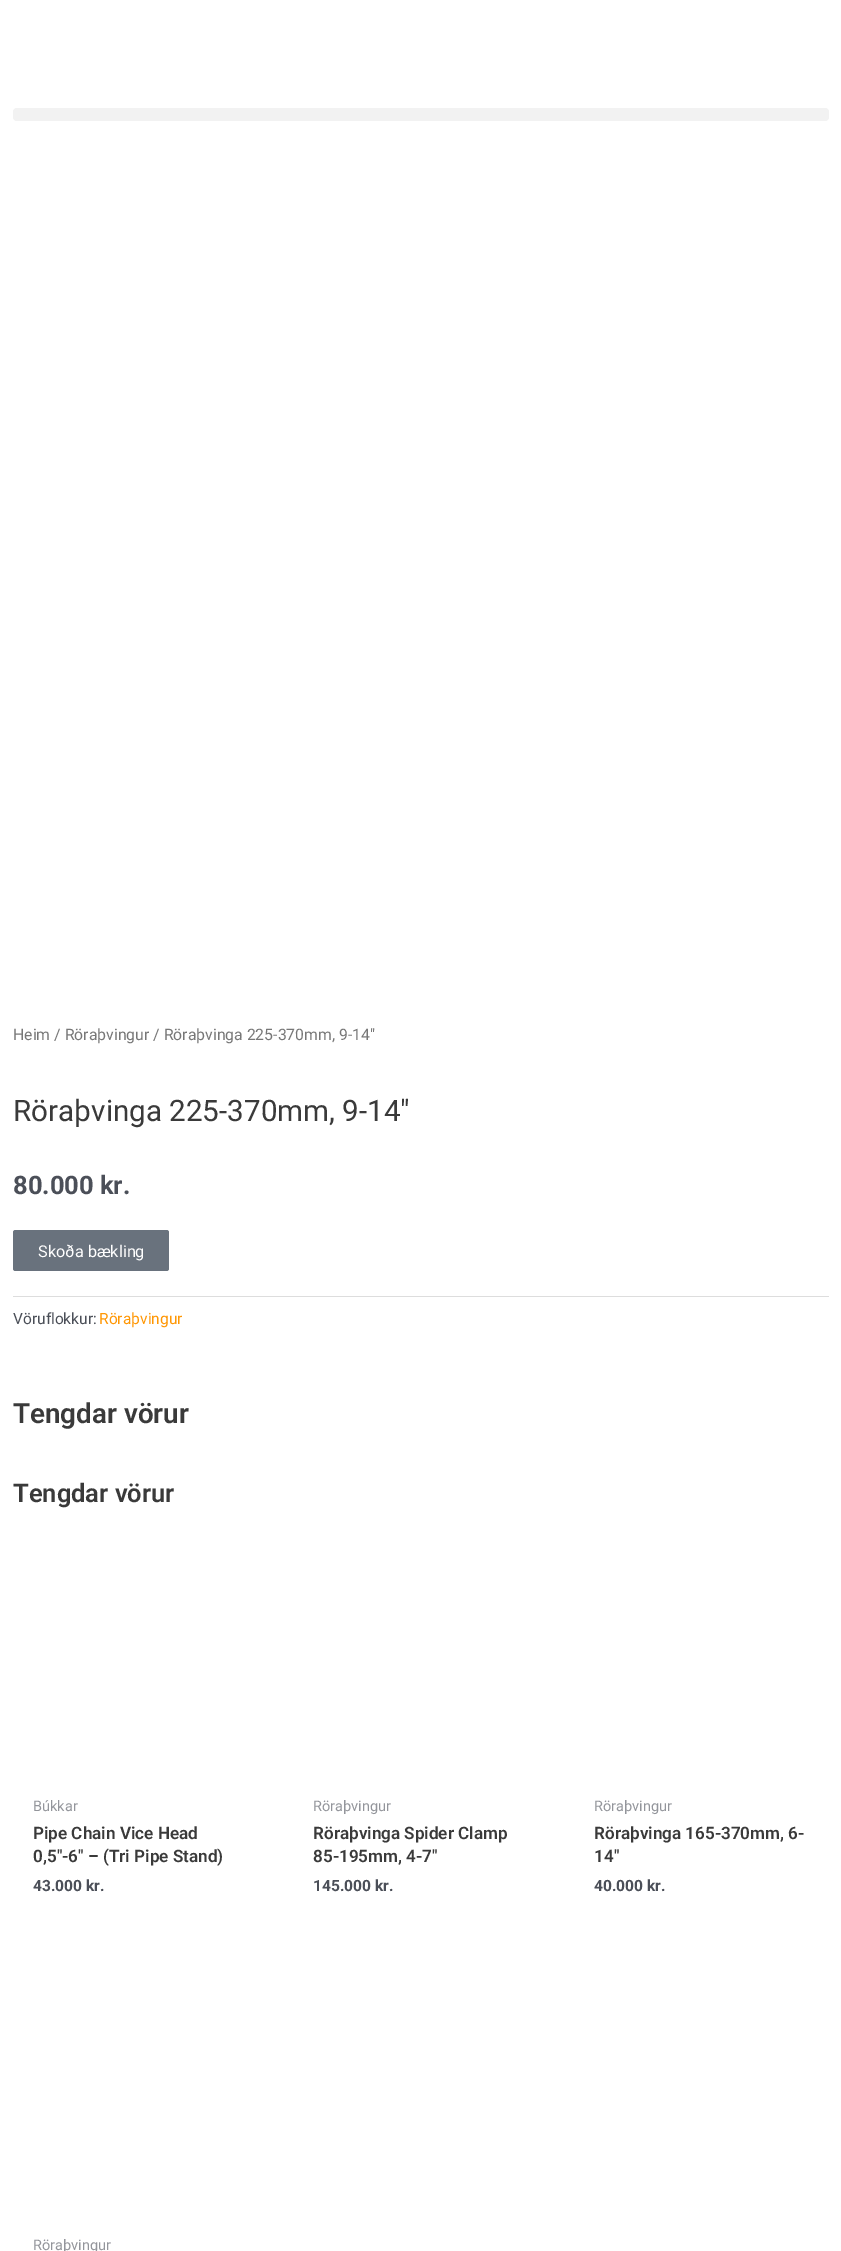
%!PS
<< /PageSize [841 2251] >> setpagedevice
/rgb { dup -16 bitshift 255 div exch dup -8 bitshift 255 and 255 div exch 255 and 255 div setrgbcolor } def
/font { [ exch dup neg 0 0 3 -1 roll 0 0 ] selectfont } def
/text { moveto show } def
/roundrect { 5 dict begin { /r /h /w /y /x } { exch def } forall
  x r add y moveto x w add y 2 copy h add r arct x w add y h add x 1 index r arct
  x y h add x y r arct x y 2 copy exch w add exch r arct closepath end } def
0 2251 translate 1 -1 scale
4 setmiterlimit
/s1 { /Roboto-Regular 15.75 font 16#777777 rgb } def
/s2 { /Roboto-Regular 29.6 font 16#3A3A3A rgb } def
/s3 { /Roboto-Bold 25.5 font 16#4B4F58 rgb } def
/s4 { /Roboto-Regular 16.25 font 16#FFFFFF rgb } def
/s5 { /Roboto-Regular 15.5 font 16#4B4F58 rgb } def
/s6 { /Roboto-Regular 15.5 font 16#FF9704 rgb } def
/s7 { /Roboto-SemiBold 27.75 font 16#3A3A3A rgb } def
/s8 { /Roboto-SemiBold 25.5 font 16#3A3A3A rgb } def
/s9 { /Roboto-Regular 14.5 font 16#93959B rgb } def
/s10 { /Roboto-SemiBold 17.1 font 16#3A3A3A rgb } def
/s11 { /Roboto-Bold 15.5 font 16#4B4F58 rgb } def
16#FFFFFF rgb
0 0 841 2251 rectfill
16#F2F2F2 rgb
13 108 816 13 4 roundrect fill
s1
(Heim / Röraþvingur / Röraþvinga 225-370mm, 9-14″) 13 1040 text
s2
(Röraþvinga 225-370mm, 9-14″) 13 1121 text
s3
(80.000 kr.) 13 1194 text
16#69727D rgb
13 1230 156 41 2.5 roundrect fill
s4
(Skoða bækling) 38 1257 text
16#DDDDDD rgb
13 1296 816 1 rectfill
s5
(Vöruflokkur:) 13 1324 text
s6
(Röraþvingur) 99 1324 text
s7
(Tengdar vörur) 13 1423 text
s8
(Tengdar vörur) 13 1502 text
s9
(Búkkar) 33 1811 text
s10
(Pipe Chain Vice Head) 33 1839 text
(0,5″-6″ – \(Tri Pipe Stand\)) 33 1862 text
s11
(43.000 kr.) 33 1891 text
s9
(Röraþvingur) 313 1811 text
s10
(Röraþvinga Spider Clamp) 313 1839 text
(85-195mm, 4-7″) 313 1862 text
s11
(145.000 kr.) 313 1891 text
s9
(Röraþvingur) 594 1811 text
s10
(Röraþvinga 165-370mm, 6-) 594 1839 text
(14″) 594 1862 text
s11
(40.000 kr.) 594 1891 text
s9
(Röraþvingur) 33 2250 text
showpage
